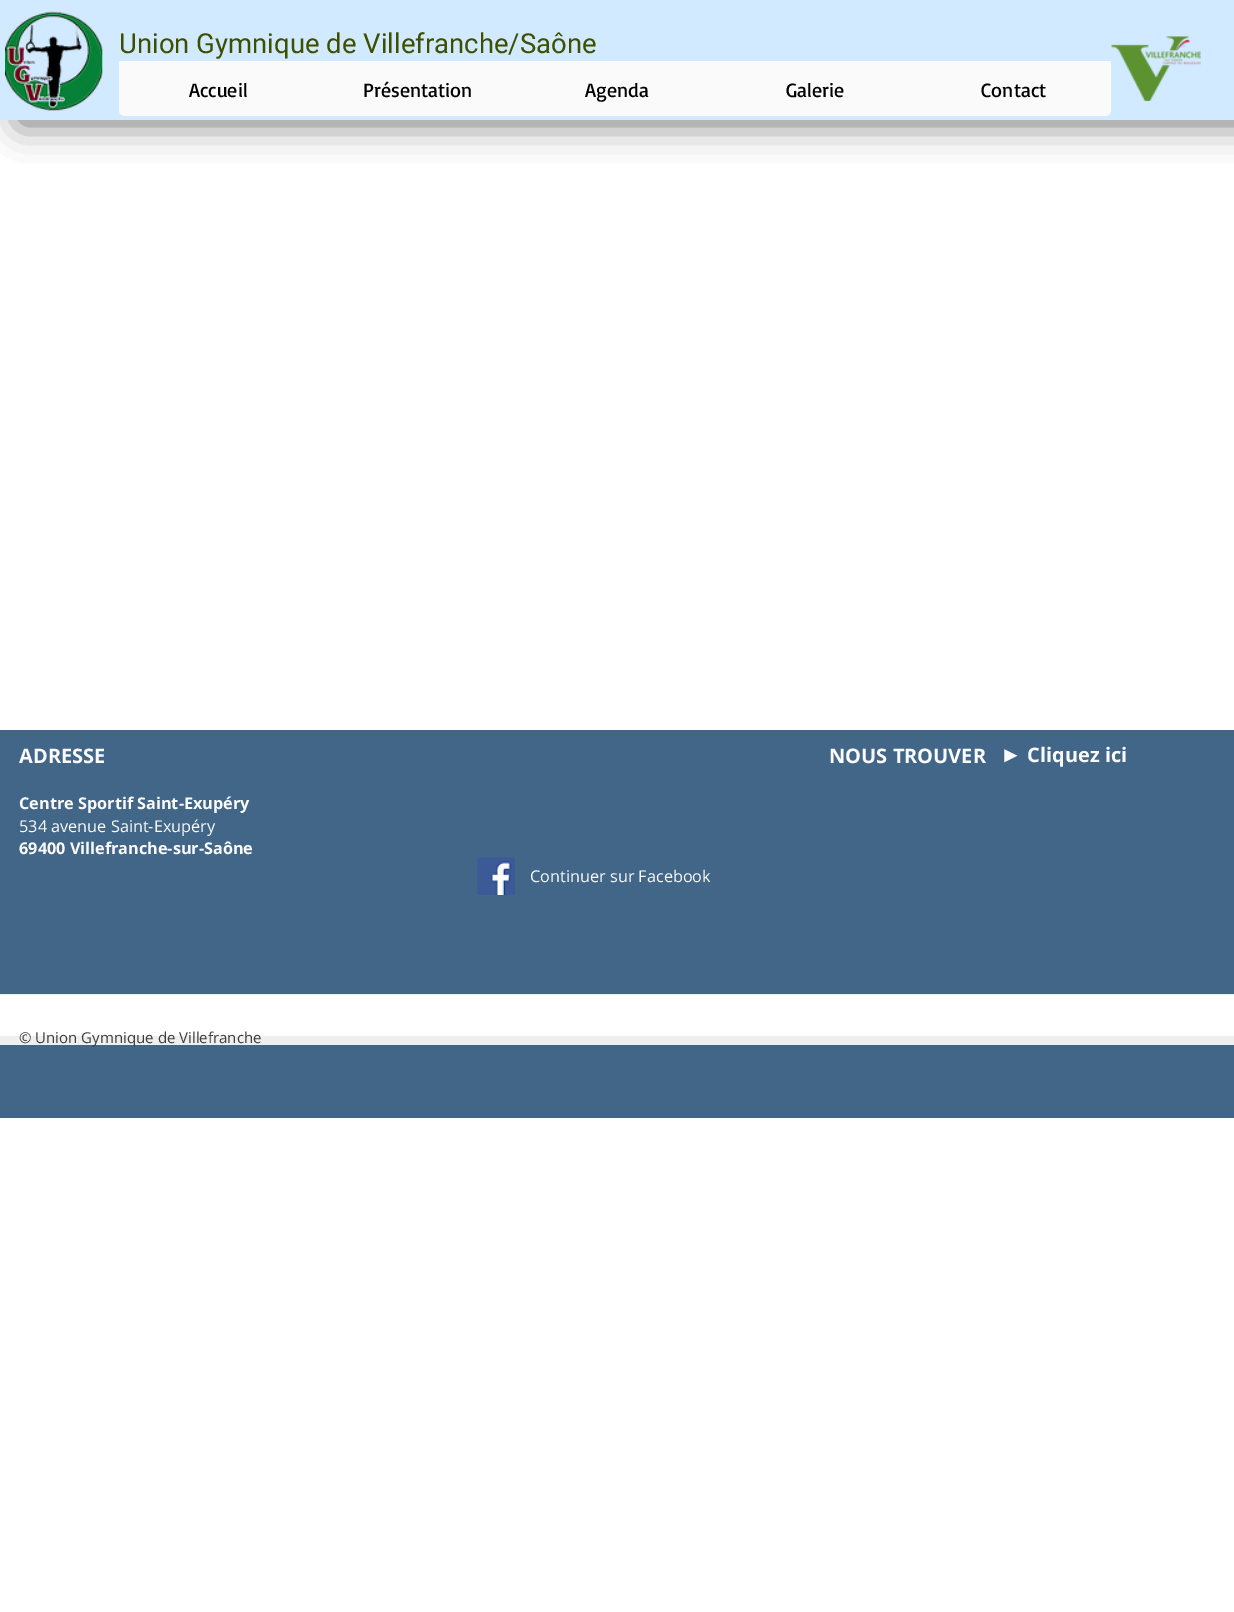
%!PS
<< /PageSize [1234 1612] /PageUsesTransparency true >> setpagedevice
/rgb { dup -16 bitshift 255 div exch dup -8 bitshift 255 and 255 div exch 255 and 255 div setrgbcolor } def
/font { [ exch dup neg 0 0 3 -1 roll 0 0 ] selectfont } def
/text { moveto show } def
/alpha { dup .setfillconstantalpha .setstrokeconstantalpha } def
/roundrect { 5 dict begin { /r /h /w /y /x } { exch def } forall
  x r add y moveto x w add y 2 copy h add r arct x w add y h add x 1 index r arct
  x y h add x y r arct x y 2 copy exch w add exch r arct closepath end } def
/shadow { 12 dict begin { /a /b /q /h /w /y /x } { exch def } forall gsave /was 0 def
  9 -2 -9 { dup b mul 4 div /e exch def 1 sub .425 mul 2.718 exch exp 1 add a .99 .min exch div /now exch def
    1 1 now sub 1 was sub div sub alpha /was now def
    w h .min e 2 mul add 0 gt { x e sub y e sub w e 2 mul add h e 2 mul add
      q e add b .6 mul add w h .min 2 div e add .min 0 .max roundrect fill } if } for grestore end } def
/picture { 5 dict begin { /h /w /y /x /name } { exch def } forall
  gsave x y translate w h scale
  w h 8 [w 0 0 h 0 0] name (r) file false 3 colorimage grestore end } def
0 .pushpdf14devicefilter
0 1612 translate 1 -1 scale
4 setmiterlimit
/s1 { /Roboto-Regular 27.5 font 16#3E4F00 rgb } def
/s2 { /Basic-Regular 20 font 16#000000 rgb } def
/s3 { /OpenSans-Bold 20 font 16#FAFAFA rgb } def
/s4 { /LiberationSans-Bold 22 font 16#FAFAFA rgb } def
/s5 { /OpenSans-Bold 16.25 font 16#FAFAFA rgb } def
/s6 { /OpenSans-Regular 16.25 font 16#FAFAFA rgb } def
/s7 { /OpenSans-Regular 15 font 16#3E3E3E rgb } def
16#FFFFFF rgb
0 0 1234 1612 rectfill
16#000000 rgb
20 3 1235 120 0 18 0.6 shadow
16#D1EAFF rgb
0 0 1234 120 rectfill
(pic1.raw) 5 11 98 100 picture
s1
(Union Gymnique de Villefranche/Saône) 119 53 text
(pic2.raw) 1111 36 90 66 picture
16#FAFAFA rgb
119 61 moveto 1111 61 lineto 1111 110 lineto 1111 113.5 1108.5 116 1105 116 curveto 125 116 lineto 121.5 116 119 113.5 119 110 curveto closepath fill
s2
(Accueil) 189 97 text
(Présentation) 363 97 text
(Agenda) 585 97 text
(Galerie) 786 97 text
(Contact) 981 97 text
16#416687 rgb
0 730 1234 388 rectfill
s3
(ADRESSE) 19 763 text
(NOUS TROUVER) 829 763 text
s4
(►) 1000 762 text
s3
(Cliquez ici) 1027 762 text
s5
(Centre Sportif Saint-Exupéry) 19 809 text
s6
(534 avenue Saint-Exupéry) 19 832 text
s5
(69400 Villefranche-sur-Saône) 19 854 text
(pic3.raw) 477 857 38 38 picture
s6
(Continuer sur Facebook) 530 882 text
16#FFFFFF rgb
0 995 1234 41 rectfill
16#EFEFEF rgb
0 994 1234 1 rectfill
0 1036 1234 9 rectfill
s7
(© Union Gymnique de Villefranche) 19 1043 text
.poppdf14devicefilter showpage
